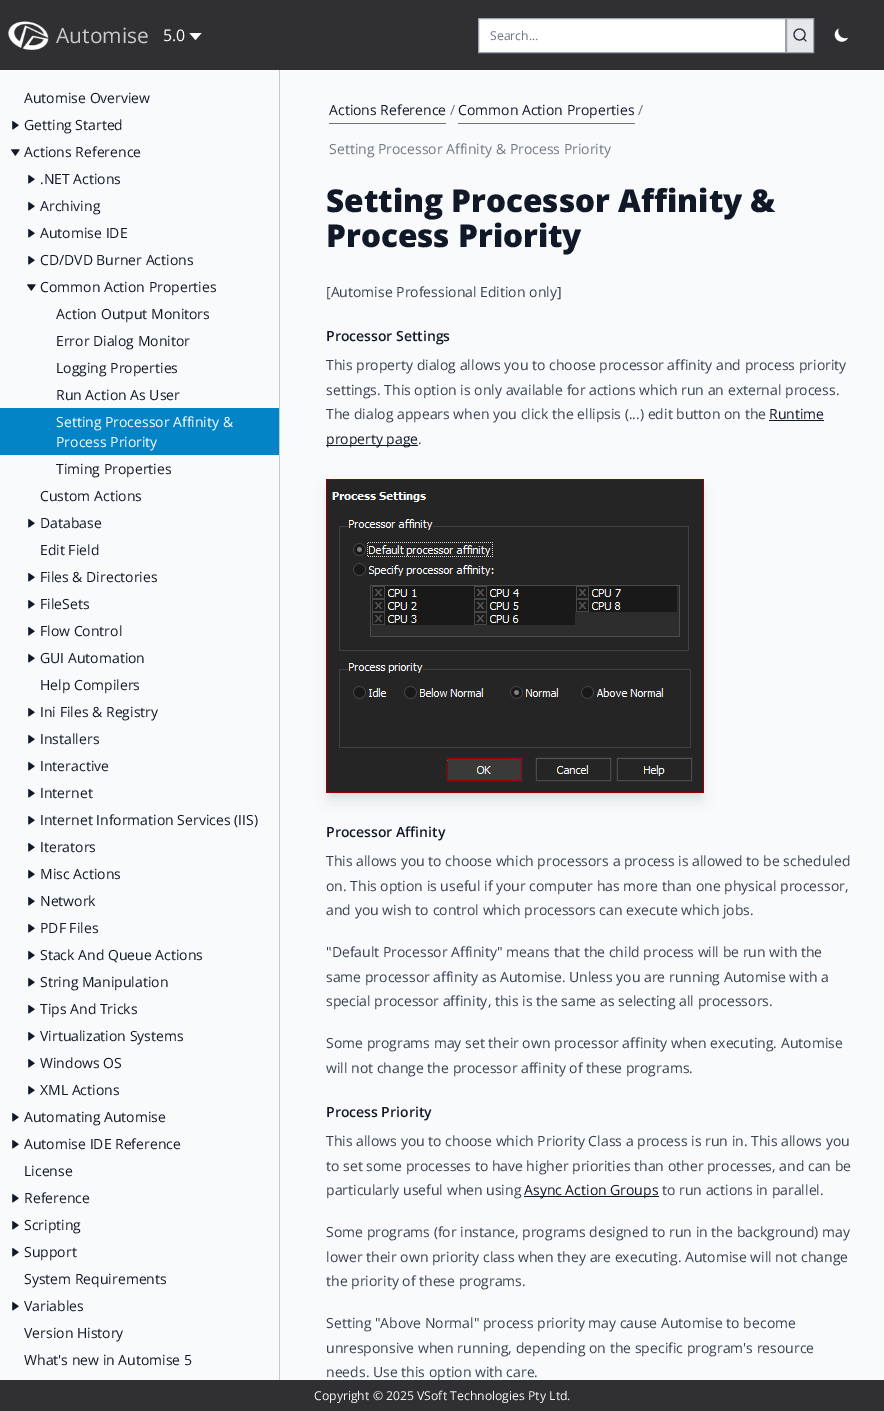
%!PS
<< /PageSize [884 1411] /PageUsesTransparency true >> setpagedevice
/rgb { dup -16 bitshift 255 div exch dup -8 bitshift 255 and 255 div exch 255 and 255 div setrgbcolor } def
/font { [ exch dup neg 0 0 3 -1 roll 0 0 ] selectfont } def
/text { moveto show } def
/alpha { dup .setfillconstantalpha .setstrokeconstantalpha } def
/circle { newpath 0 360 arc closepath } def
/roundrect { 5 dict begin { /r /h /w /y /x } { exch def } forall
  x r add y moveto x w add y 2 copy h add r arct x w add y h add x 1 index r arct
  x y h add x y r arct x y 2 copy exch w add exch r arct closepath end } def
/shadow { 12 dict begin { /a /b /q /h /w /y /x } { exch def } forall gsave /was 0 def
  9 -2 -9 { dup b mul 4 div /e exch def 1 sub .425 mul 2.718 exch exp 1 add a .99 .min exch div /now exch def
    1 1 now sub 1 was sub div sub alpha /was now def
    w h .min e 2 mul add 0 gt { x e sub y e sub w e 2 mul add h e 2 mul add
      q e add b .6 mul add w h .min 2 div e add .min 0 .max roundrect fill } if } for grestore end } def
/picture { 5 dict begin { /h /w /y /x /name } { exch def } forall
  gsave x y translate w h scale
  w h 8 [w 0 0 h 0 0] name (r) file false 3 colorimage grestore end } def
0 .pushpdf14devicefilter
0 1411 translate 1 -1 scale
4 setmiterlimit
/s1 { /OpenSans-Regular 21 font 16#C9C9CC rgb } def
/s2 { /OpenSans-Regular 16 font 16#FFFFFF rgb } def
/s3 { /OpenSans-Regular 12.25 font 16#6B7280 rgb } def
/s4 { /OpenSans-Regular 14 font 16#111827 rgb } def
/s5 { /OpenSans-Regular 14 font 16#FFFFFF rgb } def
/s6 { /OpenSans-Regular 14 font 16#6B7280 rgb } def
/s7 { /OpenSans-Regular 14 font 16#717984 rgb } def
/s8 { /OpenSans-ExtraBold 31.5 font 16#111827 rgb } def
/s9 { /OpenSans-Regular 14 font 16#374151 rgb } def
/s10 { /OpenSans-SemiBold 14 font 16#111827 rgb } def
/s11 { /OpenSans-Regular 12.25 font 16#F9FAFB rgb } def
16#F9FAFB rgb
0 0 884 1411 rectfill
16#303033 rgb
0 0 884 70 rectfill
(pic1.raw) 8 21 41 29 picture
s1
(Automise) 56 43 text
s2
(5.0) 163 41 text
195.5 40 moveto 189.5 33 lineto 201.5 33 lineto closepath fill
478.5 18.5 moveto 785.5 18.5 lineto 785.5 52.5 lineto 478.5 52.5 lineto closepath gsave fill grestore
16#9CA3AF rgb
stroke
s3
(Search...) 490 40 text
16#E5E7EB rgb
786.5 18.5 moveto 813.5 18.5 lineto 813.5 52.5 lineto 786.5 52.5 lineto closepath gsave fill grestore
16#9CA3AF rgb
stroke
16#1F2937 rgb
799.5 34.5 5.5 circle stroke
1 setlinecap
1 setlinejoin
806 41 moveto 803 38 lineto stroke
(pic2.raw) 834 28 14 14 picture
16#C9C9CC rgb
279 70 1 1310 rectfill
s4
(Automise Overview) 24 103 text
(pic3.raw) 12 120 7 10 picture
(Getting Started) 24 130 text
(pic4.raw) 11 149 9 7 picture
(Actions Reference) 24 157 text
(pic3.raw) 28 174 7 10 picture
(.NET Actions) 40 184 text
(pic3.raw) 28 201 7 10 picture
(Archiving) 40 211 text
(pic3.raw) 28 228 7 10 picture
(Automise IDE) 40 238 text
(pic3.raw) 28 255 7 10 picture
(CD/DVD Burner Actions) 40 265 text
(pic4.raw) 27 284 9 7 picture
(Common Action Properties) 40 292 text
(Action Output Monitors) 56 319 text
(Error Dialog Monitor) 56 346 text
(Logging Properties) 56 373 text
(Run Action As User) 56 400 text
16#0284C7 rgb
0 408 279 47 rectfill
s5
(Setting Processor Affinity &) 56 427 text
(Process Priority) 56 447 text
s4
(Timing Properties) 56 474 text
(Custom Actions) 40 501 text
(pic3.raw) 28 518 7 10 picture
(Database) 40 528 text
(Edit Field) 40 555 text
(pic3.raw) 28 572 7 10 picture
(Files & Directories) 40 582 text
(pic3.raw) 28 599 7 10 picture
(FileSets) 40 609 text
(pic3.raw) 28 626 7 10 picture
(Flow Control) 40 636 text
(pic3.raw) 28 653 7 10 picture
(GUI Automation) 40 663 text
(Help Compilers) 40 690 text
(pic3.raw) 28 707 7 10 picture
(Ini Files & Registry) 40 717 text
(pic3.raw) 28 734 7 10 picture
(Installers) 40 744 text
(pic3.raw) 28 761 7 10 picture
(Interactive) 40 771 text
(pic3.raw) 28 788 7 10 picture
(Internet) 40 798 text
(pic3.raw) 28 815 7 10 picture
(Internet Information Services \(IIS\)) 40 825 text
(pic3.raw) 28 842 7 10 picture
(Iterators) 40 852 text
(pic3.raw) 28 869 7 10 picture
(Misc Actions) 40 879 text
(pic3.raw) 28 896 7 10 picture
(Network) 40 906 text
(pic3.raw) 28 923 7 10 picture
(PDF Files) 40 933 text
(pic3.raw) 28 950 7 10 picture
(Stack And Queue Actions) 40 960 text
(pic3.raw) 28 977 7 10 picture
(String Manipulation) 40 987 text
(pic3.raw) 28 1004 7 10 picture
(Tips And Tricks) 40 1014 text
(pic3.raw) 28 1031 7 10 picture
(Virtualization Systems) 40 1041 text
(pic3.raw) 28 1058 7 10 picture
(Windows OS) 40 1068 text
(pic3.raw) 28 1085 7 10 picture
(XML Actions) 40 1095 text
(pic3.raw) 12 1112 7 10 picture
(Automating Automise) 24 1122 text
(pic3.raw) 12 1139 7 10 picture
(Automise IDE Reference) 24 1149 text
(License) 24 1176 text
(pic3.raw) 12 1193 7 10 picture
(Reference) 24 1203 text
(pic3.raw) 12 1220 7 10 picture
(Scripting) 24 1230 text
(pic3.raw) 12 1247 7 10 picture
(Support) 24 1257 text
(System Requirements) 24 1284 text
(pic3.raw) 12 1301 7 10 picture
(Variables) 24 1311 text
(Version History) 24 1338 text
(What's new in Automise 5) 24 1365 text
(Actions Reference) 329 115 text
16#6B7280 rgb
329 123 117 1 rectfill
(/) 450 115 text
s4
(Common Action Properties) 458 115 text
16#6B7280 rgb
458 123 177 1 rectfill
(/) 638 115 text
s7
(Setting Processor Affinity & Process Priority) 329 154 text
s8
(Setting Processor Affinity &) 326 212 text
(Process Priority) 326 247 text
s9
([Automise Professional Edition only]) 326 297 text
s10
(Processor Settings) 326 341 text
s9
(This property dialog allows you to choose processor affinity and process priority) 326 370 text
(settings. This option is only available for actions which run an external process.) 326 395 text
(The dialog appears when you click the ellipsis \(...\) edit button on the) 326 419 text
s4
(Runtime) 769 419 text
769 420 55 1 rectfill
326 445 92 1 rectfill
(property page) 326 444 text
s9
(.) 418 444 text
16#000000 rgb
330 487 370 306 0 3 0.1 shadow
329 492 372 308 0 7.5 0.1 shadow
(pic5.raw) 326 479 378 314 picture
s10
(Processor Affinity) 326 837 text
s9
(This allows you to choose which processors a process is allowed to be scheduled) 326 866 text
(on. This option is useful if your computer has more than one physical processor,) 326 891 text
(and you wish to control which processors can execute which jobs.) 326 915 text
("Default Processor Affinity" means that the child process will be run with the) 326 957 text
(same processor affinity as Automise. Unless you are running Automise with a) 326 982 text
(special processor affinity, this is the same as selecting all processors.) 326 1006 text
(Some programs may set their own processor affinity when executing. Automise) 326 1048 text
(will not change the processor affinity of these programs.) 326 1073 text
s10
(Process Priority) 326 1117 text
s9
(This allows you to choose which Priority Class a process is run in. This allows you) 326 1146 text
(to set some processes to have higher priorities than other processes, and can be) 326 1171 text
(particularly useful when using) 326 1195 text
16#111827 rgb
524 1196 135 1 rectfill
(Async Action Groups) 524 1195 text
s9
(to run actions in parallel.) 662 1195 text
(Some programs \(for instance, programs designed to run in the background\) may) 326 1237 text
(lower their own priority class when they are executing. Automise will not change) 326 1262 text
(the priority of these programs.) 326 1286 text
(Setting "Above Normal" process priority may cause Automise to become) 326 1328 text
(unresponsive when running, depending on the specific program's resource) 326 1353 text
(needs. Use this option with care.) 326 1377 text
16#303033 rgb
0 1380 884 31 rectfill
s11
(Copyright © 2025 VSoft Technologies Pty Ltd.) 314 1400 text
.poppdf14devicefilter showpage
